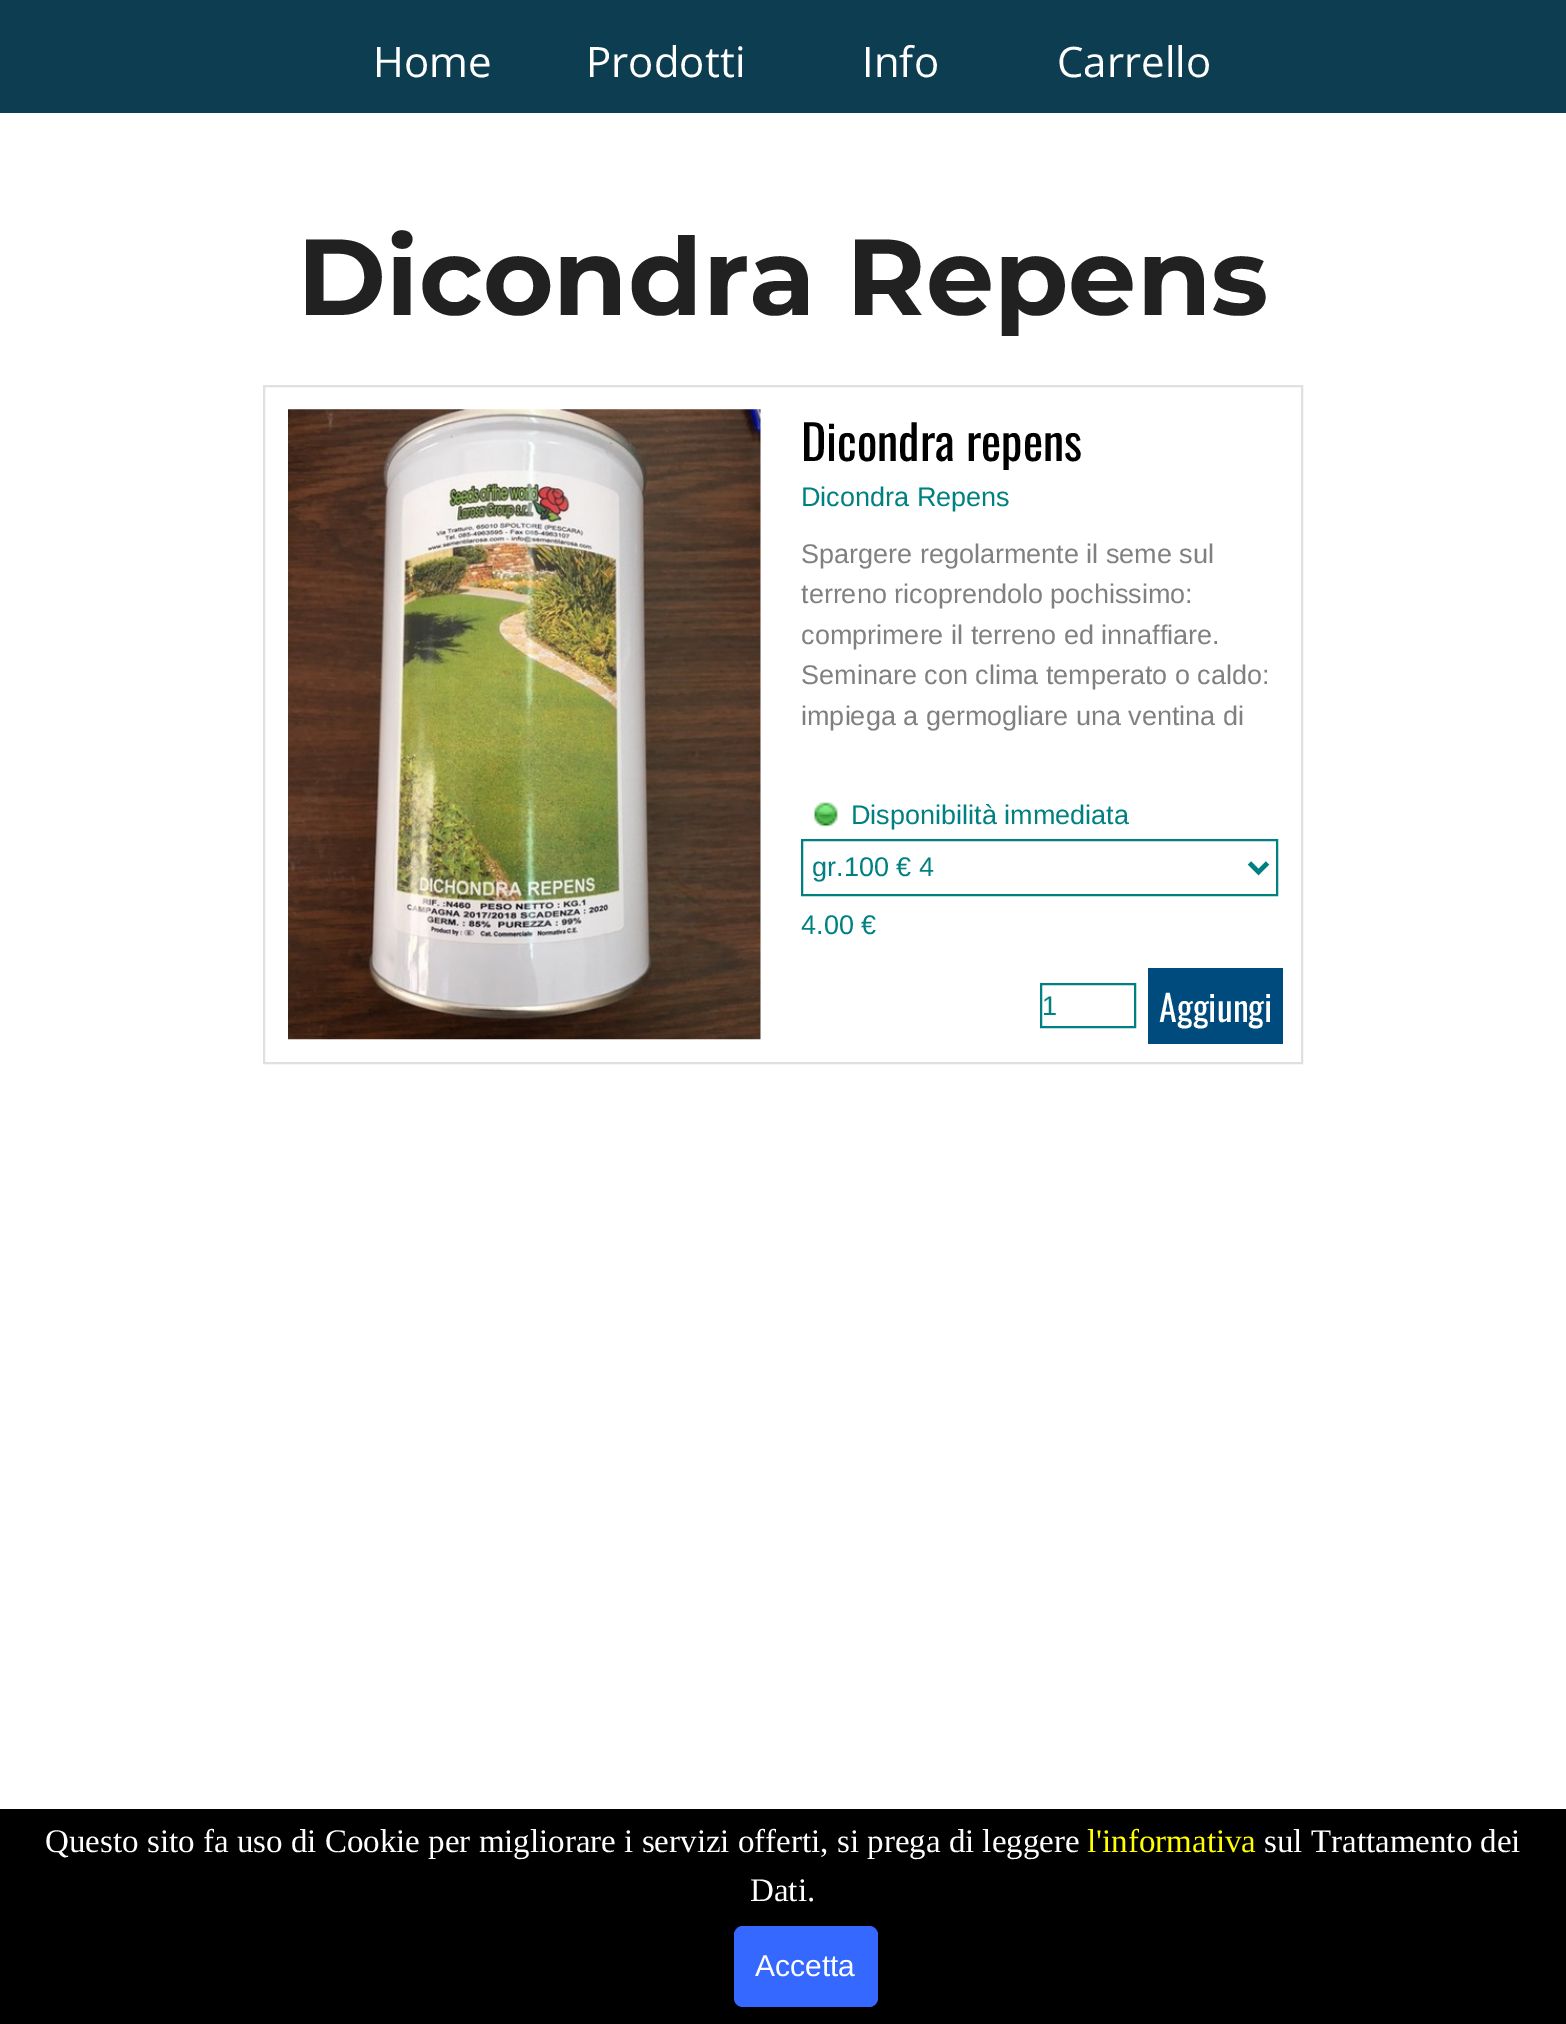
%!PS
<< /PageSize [1566 2024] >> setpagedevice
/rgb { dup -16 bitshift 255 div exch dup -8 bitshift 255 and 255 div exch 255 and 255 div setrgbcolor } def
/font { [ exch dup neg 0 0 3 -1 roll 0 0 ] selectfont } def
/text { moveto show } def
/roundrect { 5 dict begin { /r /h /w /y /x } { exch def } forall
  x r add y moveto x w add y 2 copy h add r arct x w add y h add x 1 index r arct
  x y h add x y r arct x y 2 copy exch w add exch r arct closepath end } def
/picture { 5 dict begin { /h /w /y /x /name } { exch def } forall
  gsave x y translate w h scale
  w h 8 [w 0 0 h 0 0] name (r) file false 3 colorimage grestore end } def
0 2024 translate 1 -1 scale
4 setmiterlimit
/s1 { /OpenSans-Regular 42 font 16#FFFFFF rgb } def
/s2 { /Montserrat-Bold 108 font 16#212121 rgb } def
/s3 { /Oswald-Regular 48 font 16#000000 rgb } def
/s4 { /LiberationSans-Regular 27 font 16#008080 rgb } def
/s5 { /LiberationSans-Regular 27 font 16#808080 rgb } def
/s6 { /Oswald-Regular 36 font 16#FFFFFF rgb } def
/s7 { /LiberationSerif-Regular 33 font 16#FFFFFF rgb } def
/s8 { /LiberationSerif-Regular 33 font 16#FFFF00 rgb } def
/s9 { /LiberationSans-Regular 30 font 16#FFFFFF rgb } def
16#FFFFFF rgb
0 0 1566 2024 rectfill
16#0D3D50 rgb
0 0 1566 113 rectfill
s1
(Home) 373 77 text
(Prodotti) 586 77 text
(Info) 862 77 text
(Carrello) 1057 77 text
s2
(Dicondra Repens) 297 315 text
16#E0E0E0 rgb
2 setlinewidth
264 386 1038 677 rectstroke
(pic1.raw) 288 409 473 631 picture
s3
(Dicondra repens) 801 461 text
s4
(Dicondra Repens) 801 506 text
s5
(Spargere regolarmente il seme sul) 801 563 text
(terreno ricoprendolo pochissimo:) 801 603 text
(comprimere il terreno ed innaffiare.) 801 644 text
(Seminare con clima temperato o caldo:) 801 684 text
(impiega a germogliare una ventina di) 801 725 text
(pic2.raw) 814 802 24 25 picture
s4
(Disponibilità immediata) 851 824 text
802 840 475 55 rectstroke
4.5 setlinewidth
1249.5 863 moveto 1258.5 872 lineto 1267.5 863 lineto stroke
(gr.100 € 4) 812 876 text
(4.00 €) 801 934 text
2 setlinewidth
1041 984 94 43 rectstroke
(1) 1042 1015 text
16#004B7E rgb
1148 968 135 76 rectfill
s6
(Aggiungi) 1159 1022 text
16#000000 rgb
0 1809 1566 215 rectfill
s7
(Questo sito fa uso di Cookie per migliorare i servizi offerti, si prega di leggere) 45 1852 text
s8
(l'informativa) 1087 1852 text
s7
(sul Trattamento dei) 1264 1852 text
(Dati.) 750 1901 text
16#3568FF rgb
734 1926 144 81 9 roundrect fill
s9
(Accetta) 755 1976 text
showpage
